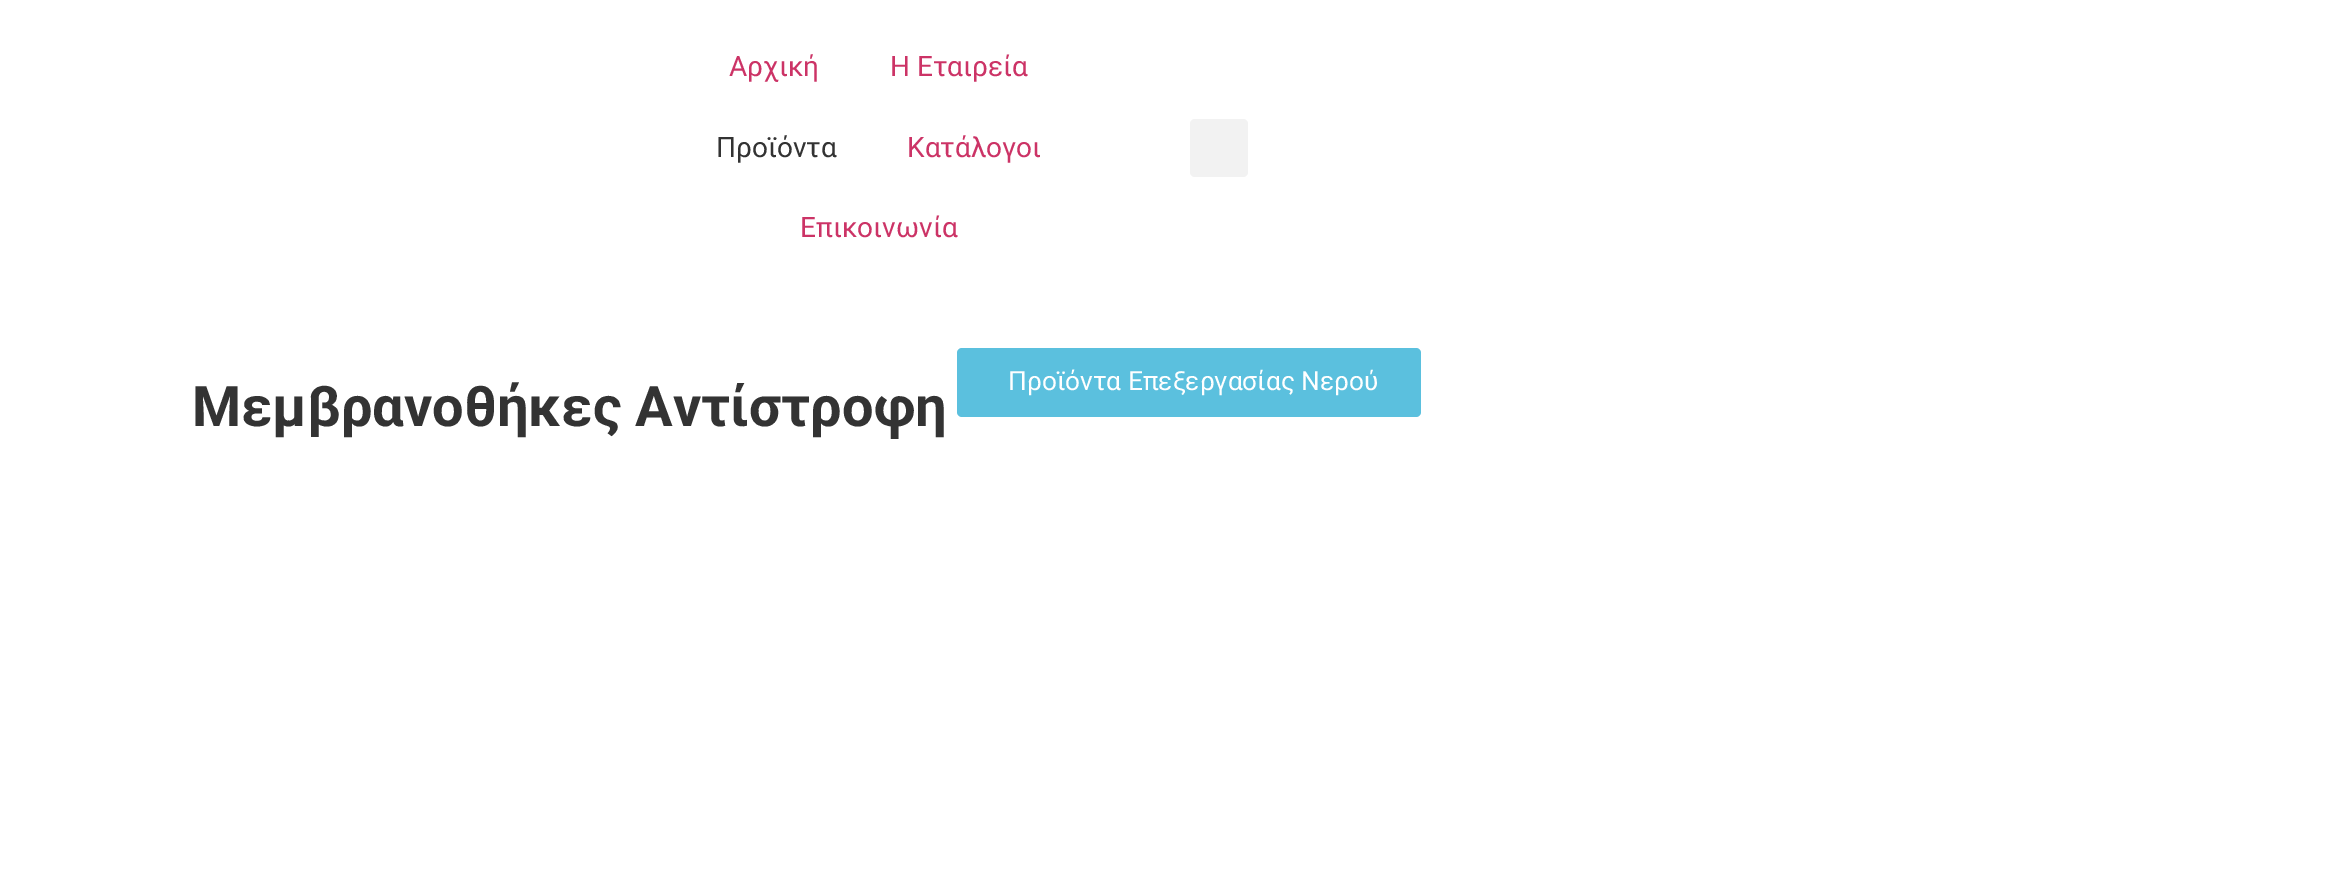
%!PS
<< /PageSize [2343 890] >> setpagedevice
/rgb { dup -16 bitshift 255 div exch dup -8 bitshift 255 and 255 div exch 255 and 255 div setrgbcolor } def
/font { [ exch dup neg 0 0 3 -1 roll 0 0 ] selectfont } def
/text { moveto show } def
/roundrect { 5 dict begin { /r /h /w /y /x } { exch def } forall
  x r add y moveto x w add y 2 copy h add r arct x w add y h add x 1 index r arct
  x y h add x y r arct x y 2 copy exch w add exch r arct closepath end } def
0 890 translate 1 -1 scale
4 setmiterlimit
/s1 { /Roboto-Regular 28 font 16#CC3366 rgb } def
/s2 { /Roboto-Regular 28 font 16#333333 rgb } def
/s3 { /Roboto-Bold 56 font 16#333333 rgb } def
/s4 { /Roboto-Regular 26.25 font 16#FFFFFF rgb } def
16#FFFFFF rgb
0 0 2343 890 rectfill
s1
(Αρχική) 729 76 text
(Η Εταιρεία) 890 76 text
s2
(Προϊόντα) 716 157 text
s1
(Κατάλογοι) 907 157 text
(Επικοινωνία) 800 237 text
16#F2F2F2 rgb
1190 119 58 58 5 roundrect fill
s3
(Μεμβρανοθήκες Αντίστροφη) 192 426 text
16#5BC0DE rgb
957 348 464 69 5 roundrect fill
s4
(Προϊόντα Επεξεργασίας Νερού) 1008 390 text
showpage
